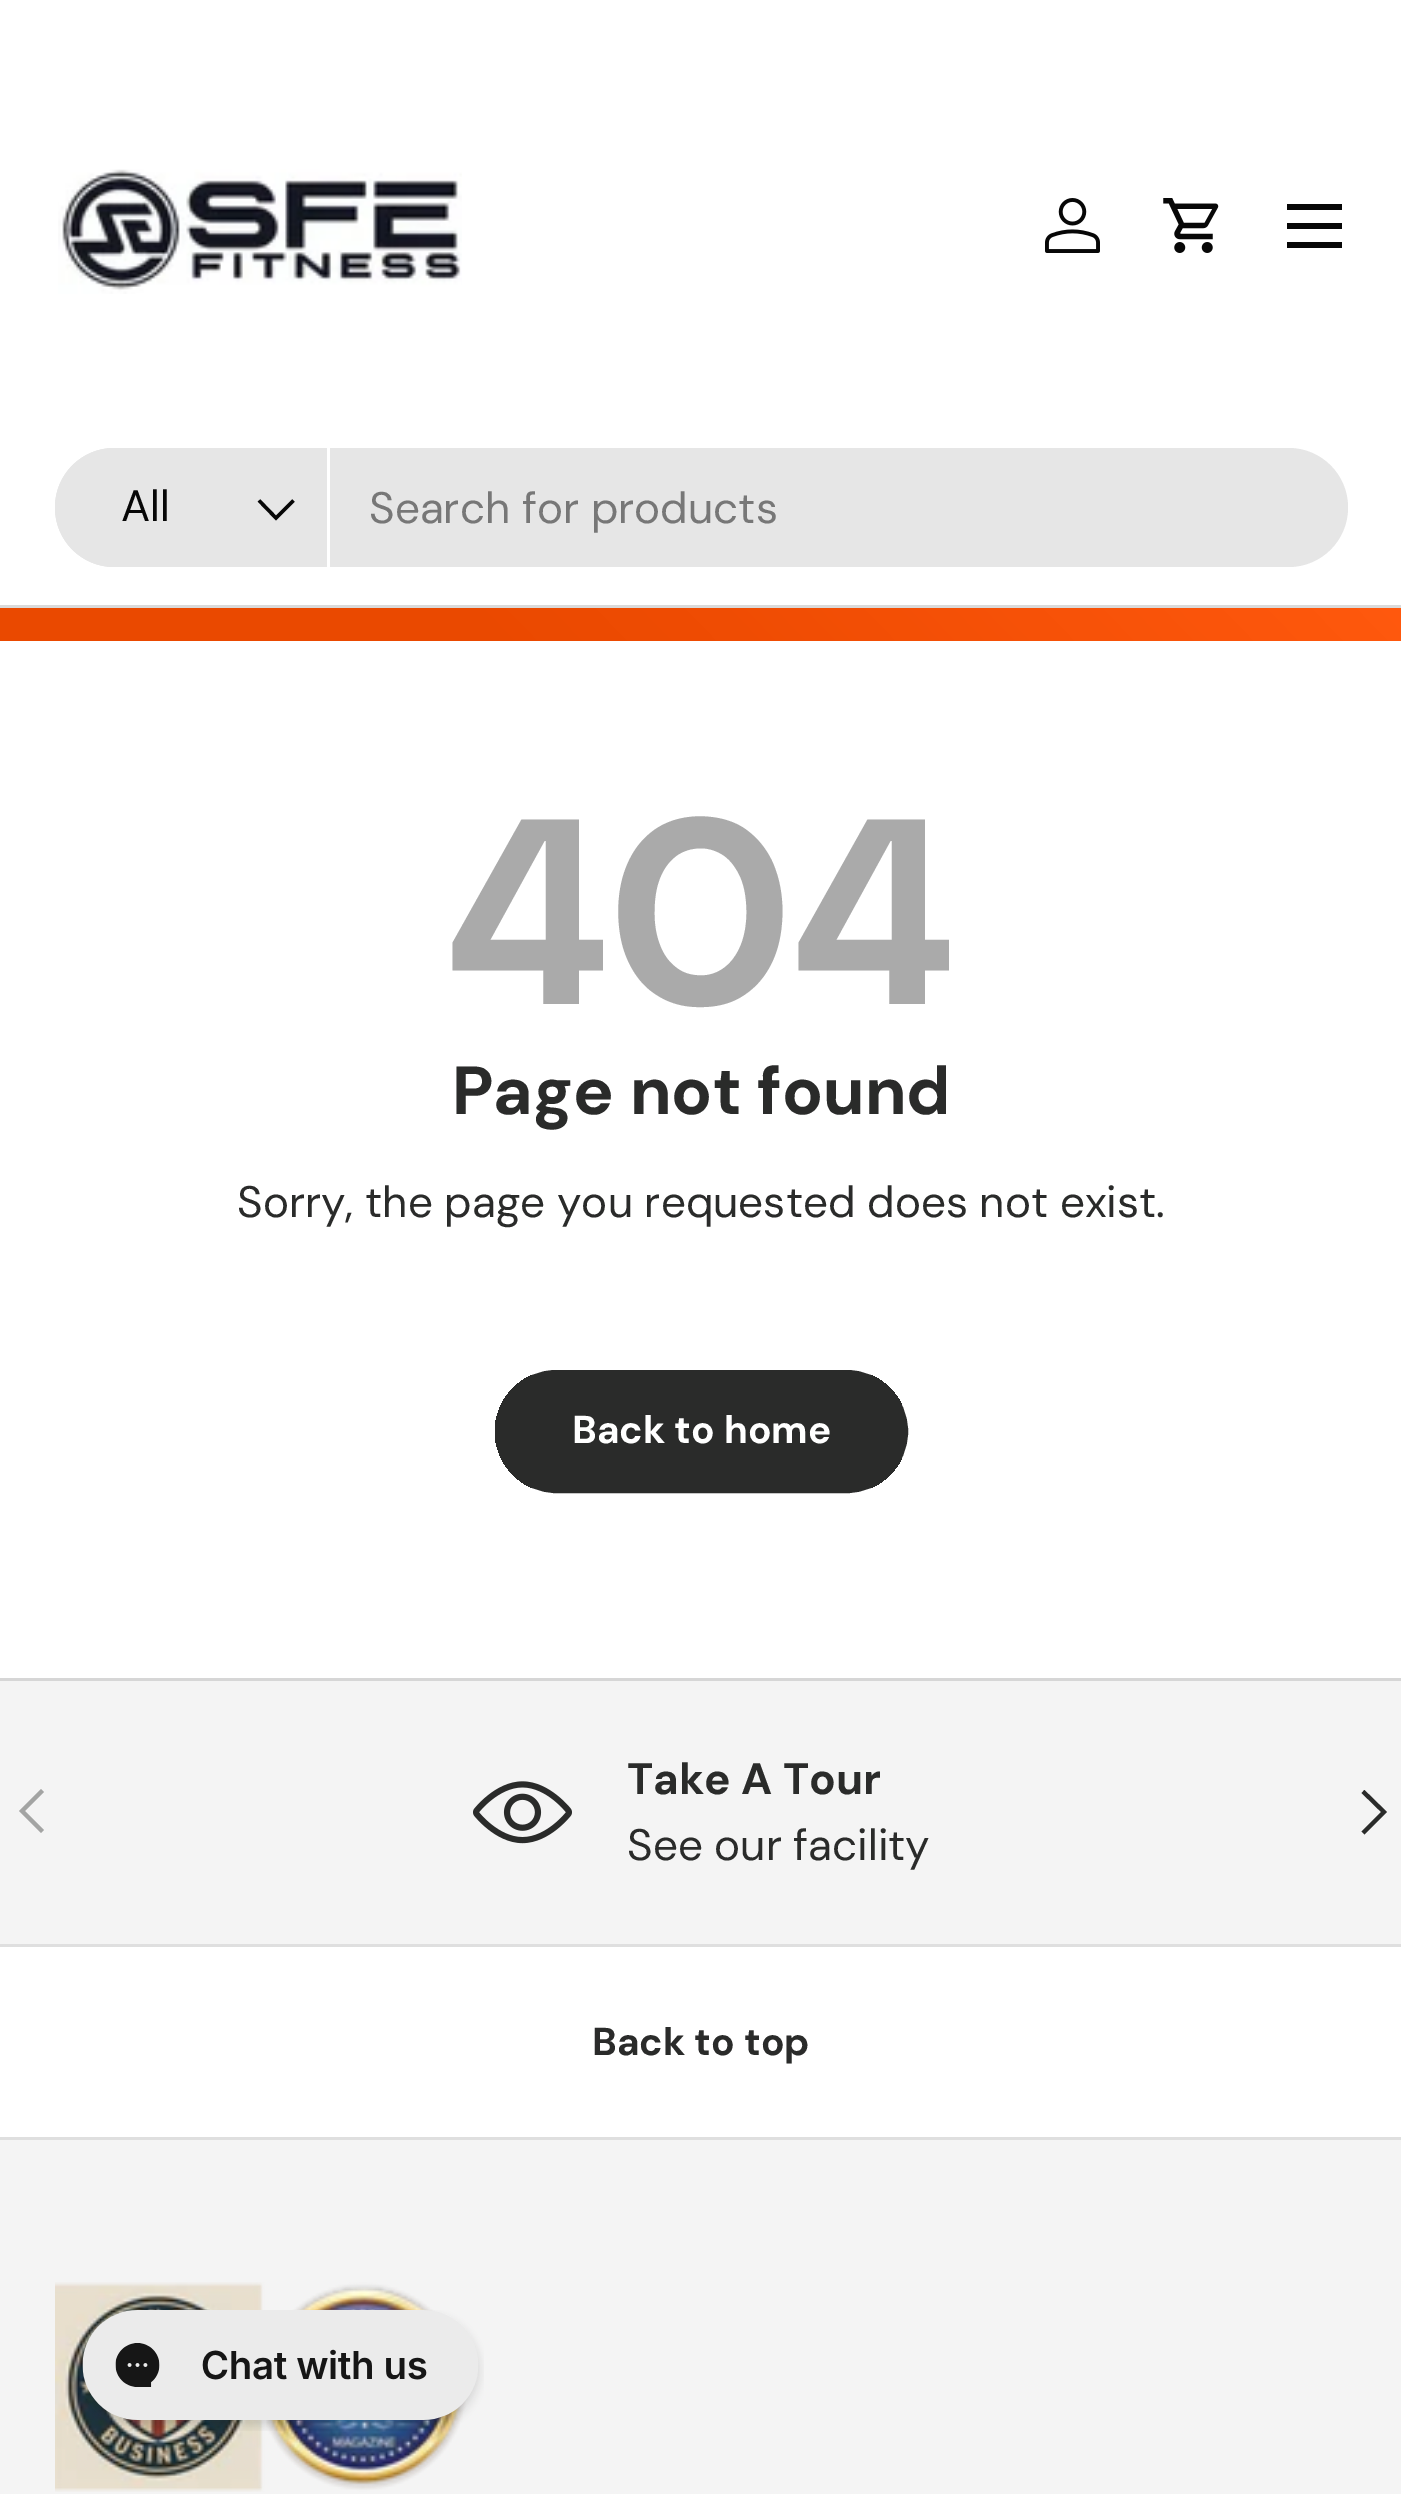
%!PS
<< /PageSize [1401 2494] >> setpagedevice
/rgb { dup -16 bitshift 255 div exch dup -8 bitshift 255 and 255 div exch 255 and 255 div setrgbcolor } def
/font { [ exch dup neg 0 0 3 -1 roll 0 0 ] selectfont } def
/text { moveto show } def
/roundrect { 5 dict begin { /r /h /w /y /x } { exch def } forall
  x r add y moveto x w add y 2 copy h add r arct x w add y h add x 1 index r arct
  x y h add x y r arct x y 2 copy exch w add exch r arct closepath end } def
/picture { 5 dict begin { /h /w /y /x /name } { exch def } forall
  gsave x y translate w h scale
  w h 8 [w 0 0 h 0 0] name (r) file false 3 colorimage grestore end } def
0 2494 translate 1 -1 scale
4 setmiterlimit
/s1 { /DMSans-Regular 44 font 16#070707 rgb } def
/s2 { /DMSans-Regular 44 font 16#777777 rgb } def
/s3 { /DMSans-Bold 264 font 16#AAAAAA rgb } def
/s4 { /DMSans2-Bold 68 font 16#2A2B2A rgb } def
/s5 { /DMSans-Regular 44 font 16#2A2B2A rgb } def
/s6 { /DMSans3-Bold 38.75 font 16#FFFFFF rgb } def
/s7 { /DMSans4-Bold 44 font 16#2A2B2A rgb } def
/s8 { /DMSans3-Bold 38.75 font 16#2A2B2A rgb } def
16#FFFFFF rgb
0 0 1401 2494 rectfill
16#DADADA rgb
0 605 1401 3 rectfill
(pic1.raw) 58 169 404 125 picture
(pic2.raw) 1045 198 55 55 picture
(pic3.raw) 1163 198 56 55 picture
16#070707 rgb
1287 204 55 6 rectfill
1287 242 55 6 rectfill
1287 223 55 6 rectfill
16#E6E6E6 rgb
55 448 1293 119 59.5 roundrect fill
114.5 448 moveto 330 448 lineto 330 567 lineto 114.5 567 lineto 81.5 567 55 540.5 55 507.5 curveto 55 474.5 81.5 448 114.5 448 curveto closepath fill
16#FFFFFF rgb
327 448 3 119 rectfill
s1
(All) 121 521 text
3.4 setlinewidth
293.5 500.5 moveto 276 518 lineto 259 500.5 lineto stroke
s2
(Search for products) 369 523 text
gsave 0 608 moveto 1401 608 lineto 1401 641 lineto 0 641 lineto closepath clip newpath
<< /ShadingType 2 /ColorSpace /DeviceRGB /Coords [300 951 1103 176] /Extend [true true] /Function << /FunctionType 3 /Domain [0 1] /Functions [<< /FunctionType 2 /Domain [0 1] /C0 [0.918 0.286 0] /C1 [0.918 0.286 0] /N 1 >> << /FunctionType 2 /Domain [0 1] /C0 [0.918 0.286 0] /C1 [0.918 0.286 0] /N 1 >> << /FunctionType 2 /Domain [0 1] /C0 [0.918 0.286 0] /C1 [1 0.345 0.051] /N 1 >> << /FunctionType 2 /Domain [0 1] /C0 [1 0.345 0.051] /C1 [1 0.345 0.051] /N 1 >>] /Bounds [0.08 0.32 0.92] /Encode [0 1 0 1 0 1 0 1] >> >> shfill grestore
s3
(404) 446 1004 text
s4
(Page not found) 452 1114 text
s5
(Sorry, the page you requested does not exist.) 237 1217 text
gsave
495 1370 413 123 61.5 roundrect clip newpath
gsave 495 1375 moveto 902 1375 lineto 902 1488 lineto 495 1488 lineto closepath clip newpath
<< /ShadingType 2 /ColorSpace /DeviceRGB /Coords [-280 1287 880 1576] /Extend [true true] /Function << /FunctionType 3 /Domain [0 1] /Functions [<< /FunctionType 2 /Domain [0 1] /C0 [0.322 0.325 0.322] /C1 [0.322 0.325 0.322] /N 1 >> << /FunctionType 2 /Domain [0 1] /C0 [0.165 0.169 0.165] /C1 [0.165 0.169 0.165] /N 1 >>] /Bounds [0.6] /Encode [0 1 0 1] >> >> shfill grestore
grestore
6 setlinewidth
498 1373 407 117 58.5 roundrect stroke
s6
(Back to home) 572 1443 text
16#F4F4F4 rgb
0 1681 1401 263 rectfill
16#D6D6D6 rgb
0 1678 1401 3 rectfill
(pic4.raw) 473 1781 99 63 picture
s7
(Take A Tour) 627 1794 text
s5
(See our facility) 627 1860 text
16#A3A4A3 rgb
19 1811 moveto 41 1789 lineto 44 1792 lineto 25 1811 lineto 44 1830 lineto 41 1833 lineto closepath fill
16#2A2B2A rgb
4.1 setlinewidth
1363 1791.5 moveto 1384 1812 lineto 1363 1833 lineto stroke
16#DFDFDF rgb
0 1944 1401 3 rectfill
0 2137 1401 3 rectfill
s8
(Back to top) 592 2055 text
16#F4F4F4 rgb
0 2140 1401 354 rectfill
(pic5.raw) 55 2282 411 210 picture
(pic6.raw) 78 2310 406 121 picture
showpage
